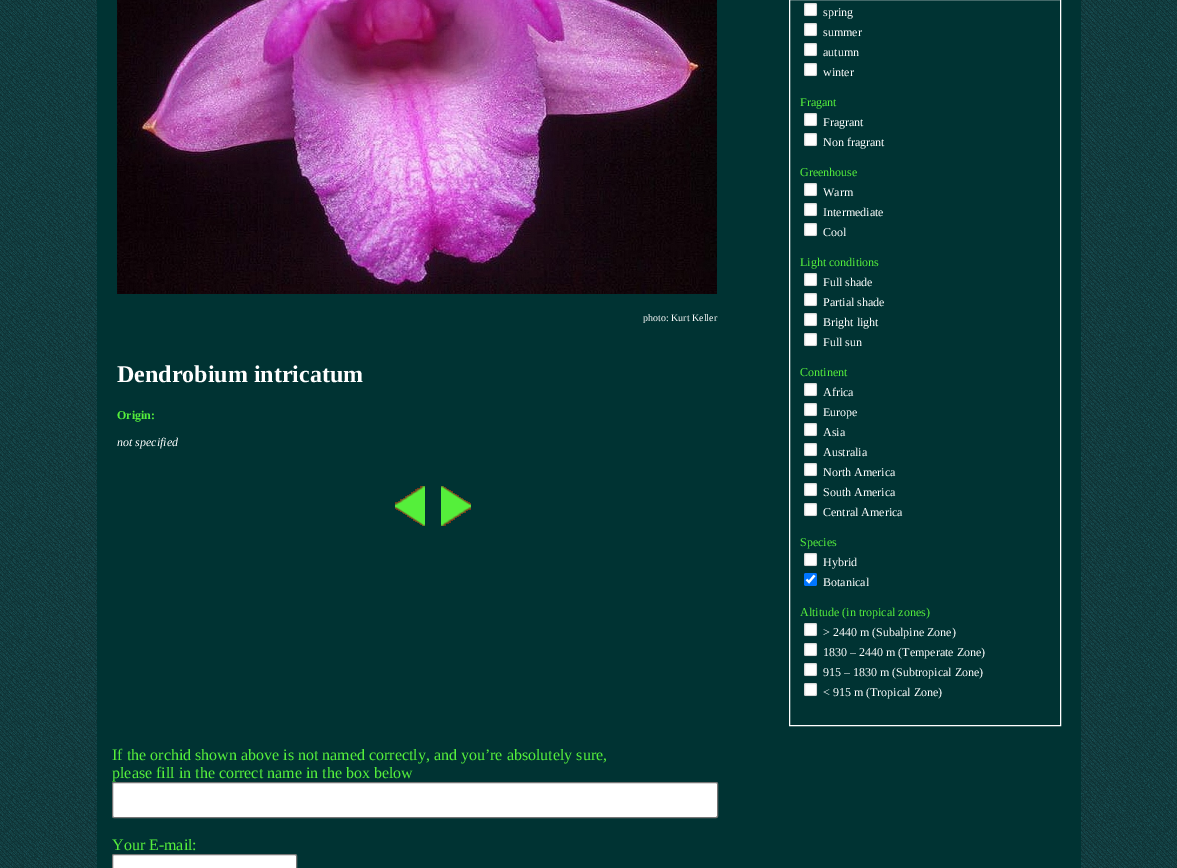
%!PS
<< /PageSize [1177 868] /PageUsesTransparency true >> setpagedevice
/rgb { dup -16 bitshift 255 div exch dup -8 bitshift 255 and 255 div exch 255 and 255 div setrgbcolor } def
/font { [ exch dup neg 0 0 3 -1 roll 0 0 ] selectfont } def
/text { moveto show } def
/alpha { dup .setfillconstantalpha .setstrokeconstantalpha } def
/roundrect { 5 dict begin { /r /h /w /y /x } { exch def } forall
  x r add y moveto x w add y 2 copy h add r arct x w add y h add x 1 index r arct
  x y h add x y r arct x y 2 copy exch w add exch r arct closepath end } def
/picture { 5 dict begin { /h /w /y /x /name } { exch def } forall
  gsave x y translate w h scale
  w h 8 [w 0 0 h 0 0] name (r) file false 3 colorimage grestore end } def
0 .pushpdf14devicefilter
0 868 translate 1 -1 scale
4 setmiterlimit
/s1 { /LiberationSerif-Regular 12 font 16#FFFFFF rgb } def
/s2 { /LiberationSerif-Regular 12 font 16#55EF3B rgb } def
/s3 { /LiberationSerif-Regular 10 font 16#FFFFFF rgb } def
/s4 { /LiberationSerif-Bold 24 font 16#FFFFFF rgb } def
/s5 { /LiberationSerif-Bold 12 font 16#55EF3B rgb } def
/s6 { /LiberationSerif-Italic 12 font 16#FFFFFF rgb } def
/s7 { /LiberationSerif-Regular 16 font 16#55EF3B rgb } def
16#FFFFFF rgb
0 0 1177 868 rectfill
(pic1.raw) 0 0 1177 868 picture
16#003333 rgb
97 0 984 868 rectfill
(pic2.raw) 117 0 600 294 picture
16#FFFFFF rgb
789.5 -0.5 271 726 rectstroke
804 3 13 13 2 roundrect fill
0.3 alpha
16#767676 rgb
804.5 3.5 12 12 1.5 roundrect stroke
1 alpha
s1
(spring) 823 16 text
804 23 13 13 2 roundrect fill
0.3 alpha
16#767676 rgb
804.5 23.5 12 12 1.5 roundrect stroke
1 alpha
s1
(summer) 823 36 text
804 43 13 13 2 roundrect fill
0.3 alpha
16#767676 rgb
804.5 43.5 12 12 1.5 roundrect stroke
1 alpha
s1
(autumn) 823 56 text
804 63 13 13 2 roundrect fill
0.3 alpha
16#767676 rgb
804.5 63.5 12 12 1.5 roundrect stroke
1 alpha
s1
(winter) 823 76 text
s2
(Fragant) 800 106 text
16#FFFFFF rgb
804 113 13 13 2 roundrect fill
0.3 alpha
16#767676 rgb
804.5 113.5 12 12 1.5 roundrect stroke
1 alpha
s1
(Fragrant) 823 126 text
804 133 13 13 2 roundrect fill
0.3 alpha
16#767676 rgb
804.5 133.5 12 12 1.5 roundrect stroke
1 alpha
s1
(Non fragrant) 823 146 text
s2
(Greenhouse) 800 176 text
16#FFFFFF rgb
804 183 13 13 2 roundrect fill
0.3 alpha
16#767676 rgb
804.5 183.5 12 12 1.5 roundrect stroke
1 alpha
s1
(Warm) 823 196 text
804 203 13 13 2 roundrect fill
0.3 alpha
16#767676 rgb
804.5 203.5 12 12 1.5 roundrect stroke
1 alpha
s1
(Intermediate) 823 216 text
804 223 13 13 2 roundrect fill
0.3 alpha
16#767676 rgb
804.5 223.5 12 12 1.5 roundrect stroke
1 alpha
s1
(Cool) 823 236 text
s2
(Light conditions) 800 266 text
16#FFFFFF rgb
804 273 13 13 2 roundrect fill
0.3 alpha
16#767676 rgb
804.5 273.5 12 12 1.5 roundrect stroke
1 alpha
s1
(Full shade) 823 286 text
804 293 13 13 2 roundrect fill
0.3 alpha
16#767676 rgb
804.5 293.5 12 12 1.5 roundrect stroke
1 alpha
s1
(Partial shade) 823 306 text
804 313 13 13 2 roundrect fill
0.3 alpha
16#767676 rgb
804.5 313.5 12 12 1.5 roundrect stroke
1 alpha
s1
(Bright light) 823 326 text
804 333 13 13 2 roundrect fill
0.3 alpha
16#767676 rgb
804.5 333.5 12 12 1.5 roundrect stroke
1 alpha
s1
(Full sun) 823 346 text
s2
(Continent) 800 376 text
16#FFFFFF rgb
804 383 13 13 2 roundrect fill
0.3 alpha
16#767676 rgb
804.5 383.5 12 12 1.5 roundrect stroke
1 alpha
s1
(Africa) 823 396 text
804 403 13 13 2 roundrect fill
0.3 alpha
16#767676 rgb
804.5 403.5 12 12 1.5 roundrect stroke
1 alpha
s1
(Europe) 823 416 text
804 423 13 13 2 roundrect fill
0.3 alpha
16#767676 rgb
804.5 423.5 12 12 1.5 roundrect stroke
1 alpha
s1
(Asia) 823 436 text
804 443 13 13 2 roundrect fill
0.3 alpha
16#767676 rgb
804.5 443.5 12 12 1.5 roundrect stroke
1 alpha
s1
(Australia) 823 456 text
804 463 13 13 2 roundrect fill
0.3 alpha
16#767676 rgb
804.5 463.5 12 12 1.5 roundrect stroke
1 alpha
s1
(North America) 823 476 text
804 483 13 13 2 roundrect fill
0.3 alpha
16#767676 rgb
804.5 483.5 12 12 1.5 roundrect stroke
1 alpha
s1
(South America) 823 496 text
804 503 13 13 2 roundrect fill
0.3 alpha
16#767676 rgb
804.5 503.5 12 12 1.5 roundrect stroke
1 alpha
s1
(Central America) 823 516 text
s2
(Species) 800 546 text
16#FFFFFF rgb
804 553 13 13 2 roundrect fill
0.3 alpha
16#767676 rgb
804.5 553.5 12 12 1.5 roundrect stroke
1 alpha
s1
(Hybrid) 823 566 text
16#0075FF rgb
804 573 13 13 2 roundrect fill
16#FFFFFF rgb
2.1 setlinewidth
806.5 579.5 moveto 809 582 lineto 814.5 575.5 lineto stroke
(Botanical) 823 586 text
s2
(Altitude \(in tropical zones\)) 800 616 text
16#FFFFFF rgb
804 623 13 13 2 roundrect fill
0.3 alpha
16#767676 rgb
1 setlinewidth
804.5 623.5 12 12 1.5 roundrect stroke
1 alpha
s1
(> 2440 m \(Subalpine Zone\)) 823 636 text
804 643 13 13 2 roundrect fill
0.3 alpha
16#767676 rgb
804.5 643.5 12 12 1.5 roundrect stroke
1 alpha
s1
(1830 – 2440 m \(Temperate Zone\)) 823 656 text
804 663 13 13 2 roundrect fill
0.3 alpha
16#767676 rgb
804.5 663.5 12 12 1.5 roundrect stroke
1 alpha
s1
(915 – 1830 m \(Subtropical Zone\)) 823 676 text
804 683 13 13 2 roundrect fill
0.3 alpha
16#767676 rgb
804.5 683.5 12 12 1.5 roundrect stroke
1 alpha
s1
(< 915 m \(Tropical Zone\)) 823 696 text
s3
(photo: Kurt Keller) 643 321 text
s4
(Dendrobium intricatum) 117 382 text
s5
(Origin:) 117 419 text
s6
(not specified) 117 446 text
(pic3.raw) 395 486 30 40 picture
(pic4.raw) 441 486 30 40 picture
s7
(If the orchid shown above is not named correctly, and you’re absolutely sure,) 112 760 text
(please fill in the correct name in the box below) 112 778 text
16#FFFFFF rgb
112.5 782.5 605 35 1.5 roundrect gsave fill grestore
16#767676 rgb
stroke
s7
(Your E-mail:) 112 850 text
16#FFFFFF rgb
112.5 854.5 184 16 1.5 roundrect gsave fill grestore
16#767676 rgb
stroke
.poppdf14devicefilter showpage
